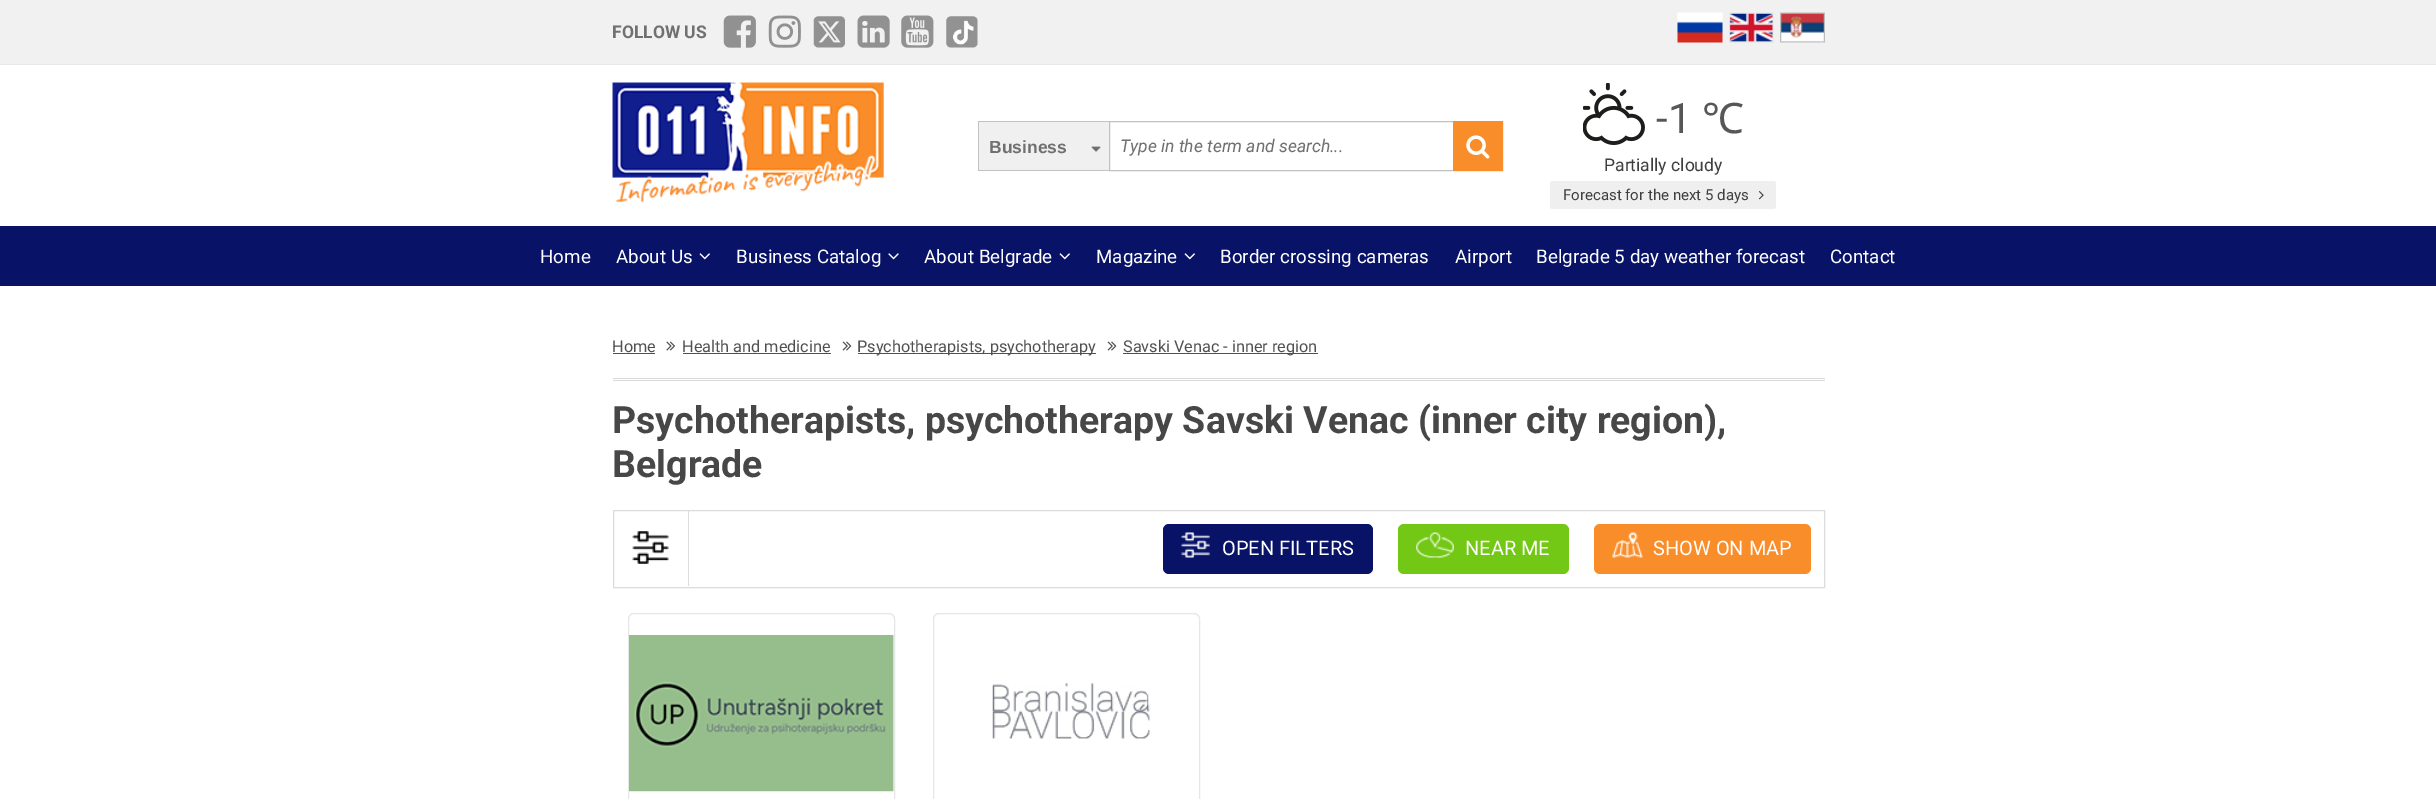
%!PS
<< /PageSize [2436 799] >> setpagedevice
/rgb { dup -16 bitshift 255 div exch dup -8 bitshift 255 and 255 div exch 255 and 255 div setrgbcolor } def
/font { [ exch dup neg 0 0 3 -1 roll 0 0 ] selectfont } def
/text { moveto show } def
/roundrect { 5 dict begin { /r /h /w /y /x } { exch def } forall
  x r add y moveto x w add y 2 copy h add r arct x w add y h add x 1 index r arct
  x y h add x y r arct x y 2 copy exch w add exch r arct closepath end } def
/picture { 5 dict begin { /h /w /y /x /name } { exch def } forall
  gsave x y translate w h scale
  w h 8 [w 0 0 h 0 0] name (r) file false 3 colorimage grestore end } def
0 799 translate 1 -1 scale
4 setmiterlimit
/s1 { /Roboto-Bold 17.5 font 16#707070 rgb } def
/s2 { /LiberationSans-Bold 17.5 font 16#707070 rgb } def
/s3 { /Roboto-Italic 17.5 font 16#707070 rgb } def
/s4 { /Roboto-Regular 42 font 16#575757 rgb } def
/s5 { /NotoSans-Regular 42 font 16#575757 rgb } def
/s6 { /Roboto-Regular 17.5 font 16#3F3F3F rgb } def
/s7 { /Roboto-Regular 15 font 16#3F3F3F rgb } def
/s8 { /Roboto-Regular 18.75 font 16#FFFFFF rgb } def
/s9 { /Roboto-Regular 16.25 font 16#505050 rgb } def
/s10 { /Roboto-Bold 37.5 font 16#474747 rgb } def
/s11 { /Roboto-Regular 20 font 16#FFFFFF rgb } def
16#FFFFFF rgb
0 0 2436 799 rectfill
16#F1F1F1 rgb
0 0 2436 64 rectfill
16#E8E8E8 rgb
0 64 2436 1 rectfill
s1
(FOLLOW US) 612 38 text
(pic1.raw) 723 15 33 33 picture
(pic2.raw) 768 15 33 33 picture
(pic3.raw) 813 16 32 32 picture
(pic4.raw) 857 15 33 33 picture
(pic5.raw) 901 15 33 33 picture
(pic6.raw) 946 16 32 32 picture
(pic7.raw) 1677 12 46 31 picture
(pic8.raw) 1729 12 45 31 picture
(pic9.raw) 1780 12 45 31 picture
(pic10.raw) 612 82 272 121 picture
16#F0F0F0 rgb
979 122 130 48 rectfill
(pic11.raw) 1091 146 10 6 picture
16#C2C2C2 rgb
978 121 131 1 rectfill
978 170 131 1 rectfill
978 121 1 50 rectfill
s2
(Business) 989 153 text
16#C2C2C2 rgb
1109.5 121.5 393 49 rectstroke
s3
(Type in the term and search...) 1120 152 text
16#F98D29 rgb
1453 121 50 50 rectfill
(pic12.raw) 1466 135 24 24 picture
(pic13.raw) 1583 83 62 62 picture
s4
(-1) 1656 133 text
s5
(℃) 1702 133 text
s6
(Partially cloudy) 1604 171 text
16#EFEFEF rgb
1550 181 226 28 2.5 roundrect fill
s7
(Forecast for the next 5 days) 1563 200 text
(pic14.raw) 1758 191 6 9 picture
16#081266 rgb
0 226 2436 60 rectfill
s8
(Home) 540 263 text
(About Us) 616 263 text
(pic15.raw) 699 253 11 7 picture
(Business Catalog) 736 263 text
(pic16.raw) 888 253 11 7 picture
(About Belgrade) 924 263 text
(pic15.raw) 1059 253 11 7 picture
(Magazine) 1096 263 text
(pic15.raw) 1184 253 11 7 picture
(Border crossing cameras) 1220 263 text
(Airport) 1455 263 text
(Belgrade 5 day weather forecast) 1536 263 text
(Contact) 1830 263 text
s9
(Home) 612 352 text
613 353 42 1 rectfill
(pic17.raw) 666 341 10 10 picture
(Health and medicine) 682 352 text
683 353 148 1 rectfill
(pic18.raw) 842 341 10 10 picture
858 353 238 1 rectfill
(Psychotherapists, psychotherapy) 857 352 text
(pic18.raw) 1107 341 10 10 picture
1123 353 195 1 rectfill
(Savski Venac - inner region) 1123 352 text
16#DBDBDB rgb
613 378 1212 1 rectfill
613 380 1212 1 rectfill
s10
(Psychotherapists, psychotherapy Savski Venac \(inner city region\),) 612 433 text
(Belgrade) 612 477 text
16#DCDCDC rgb
613.5 510.5 1211 77 rectstroke
688 511 1 75 rectfill
(pic19.raw) 632 531 37 33 picture
16#081266 rgb
1163 524 210 50 6 roundrect fill
(pic20.raw) 1181 532 29 26 picture
s11
(OPEN FILTERS) 1222 555 text
16#72C814 rgb
1398 524 171 50 6 roundrect fill
(pic21.raw) 1416 532 38 26 picture
s11
(NEAR ME) 1465 555 text
16#F98D29 rgb
1594 524 217 50 6 roundrect fill
(pic22.raw) 1612 532 31 26 picture
s11
(SHOW ON MAP) 1653 555 text
16#E6E6E6 rgb
628.5 613.5 266 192 5.5 roundrect stroke
(pic23.raw) 629 635 265 157 picture
933.5 613.5 266 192 5.5 roundrect stroke
(pic24.raw) 992 683 158 56 picture
showpage
